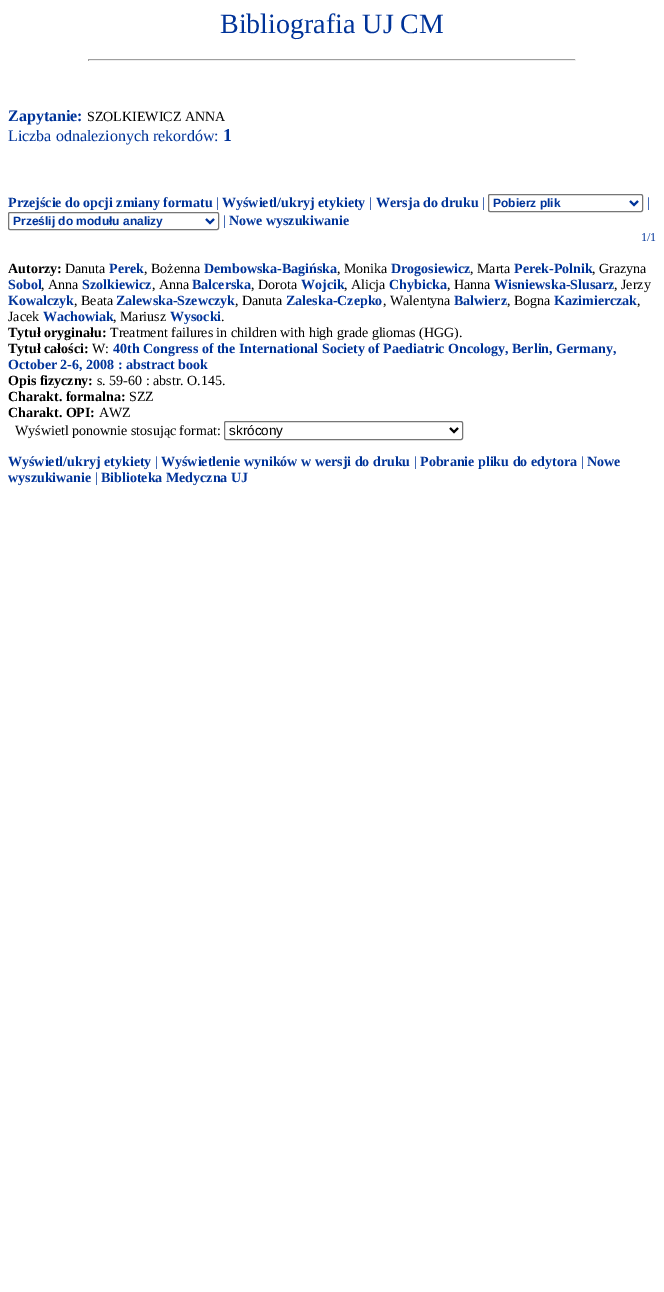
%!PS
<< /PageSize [664 1292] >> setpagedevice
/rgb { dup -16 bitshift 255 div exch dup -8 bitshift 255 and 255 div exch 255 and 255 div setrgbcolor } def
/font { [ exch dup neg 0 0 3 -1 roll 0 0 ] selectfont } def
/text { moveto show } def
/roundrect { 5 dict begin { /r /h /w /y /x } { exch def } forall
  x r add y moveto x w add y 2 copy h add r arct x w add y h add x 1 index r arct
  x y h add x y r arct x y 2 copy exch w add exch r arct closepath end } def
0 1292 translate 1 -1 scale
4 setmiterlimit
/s1 { /LiberationSerif-Regular 28 font 16#003399 rgb } def
/s2 { /LiberationSerif-Bold 16 font 16#003399 rgb } def
/s3 { /LiberationSerif-Regular 14 font 16#000000 rgb } def
/s4 { /LiberationSerif-Regular 16 font 16#003399 rgb } def
/s5 { /LiberationSerif-Bold 18 font 16#003399 rgb } def
/s6 { /LiberationSerif-Bold 14 font 16#003399 rgb } def
/s7 { /LiberationSerif-Regular 14 font 16#003399 rgb } def
/s8 { /LiberationSans-Bold 12 font 16#003399 rgb } def
/s9 { /LiberationSerif-Regular 12 font 16#003399 rgb } def
/s10 { /LiberationSerif-Bold 14 font 16#000000 rgb } def
/s11 { /LiberationSans-Regular 13.5 font 16#000000 rgb } def
16#FFFFFF rgb
0 0 664 1292 rectfill
s1
(Bibliografia UJ CM) 220 33 text
16#9F9F9F rgb
88 59 488 1 rectfill
16#EEEEEE rgb
575 59 1 2 rectfill
88 60 488 1 rectfill
16#9F9F9F rgb
88 59 1 2 rectfill
s2
(Zapytanie:) 8 121 text
s3
(SZOLKIEWICZ ANNA) 87 121 text
s4
(Liczba odnalezionych rekordów:) 8 141 text
s5
(1) 223 141 text
s6
(Przejście do opcji zmiany formatu) 8 207 text
s7
(|) 216 207 text
s6
(Wyświetl/ukryj etykiety) 222 207 text
s7
(|) 369 207 text
s6
(Wersja do druku) 376 207 text
s7
(|) 482 207 text
16#767676 rgb
488.5 194.5 154 17 1.5 roundrect stroke
16#003399 rgb
2 setlinewidth
630 201 moveto 634 205 lineto 638 201 lineto stroke
s8
(Pobierz plik) 493 207 text
s7
(|) 647 207 text
16#767676 rgb
1 setlinewidth
8.5 212.5 210 17 1.5 roundrect stroke
16#003399 rgb
2 setlinewidth
206 219 moveto 210 223 lineto 214 219 lineto stroke
s8
(Prześlij do modułu analizy) 13 225 text
s7
(|) 223 225 text
s6
(Nowe wyszukiwanie) 229 225 text
s9
(1/1) 641 241 text
s10
(Autorzy:) 8 273 text
s3
(Danuta) 65 273 text
s6
(Perek) 109 273 text
s3
(, Bożenna) 144 273 text
s6
(Dembowska-Bagińska) 204 273 text
s3
(, Monika) 337 273 text
s6
(Drogosiewicz) 391 273 text
s3
(, Marta) 470 273 text
s6
(Perek-Polnik) 514 273 text
s3
(, Grazyna) 592 273 text
s6
(Sobol) 8 289 text
s3
(, Anna) 41 289 text
s6
(Szolkiewicz) 82 289 text
s3
(, Anna) 152 289 text
s6
(Balcerska) 192 289 text
s3
(, Dorota) 251 289 text
s6
(Wojcik) 301 289 text
s3
(, Alicja) 344 289 text
s6
(Chybicka) 389 289 text
s3
(, Hanna) 447 289 text
s6
(Wisniewska-Slusarz) 494 289 text
s3
(, Jerzy) 614 289 text
s6
(Kowalczyk) 8 305 text
s3
(, Beata) 74 305 text
s6
(Zalewska-Szewczyk) 116 305 text
s3
(, Danuta) 235 305 text
s6
(Zaleska-Czepko) 286 305 text
s3
(, Walentyna) 383 305 text
s6
(Balwierz) 454 305 text
s3
(, Bogna) 507 305 text
s6
(Kazimierczak) 554 305 text
s3
(,) 637 305 text
(Jacek) 8 321 text
s6
(Wachowiak) 43 321 text
s3
(, Mariusz) 113 321 text
s6
(Wysocki) 170 321 text
s3
(.) 221 321 text
s10
(Tytuł oryginału:) 8 337 text
s3
(Treatment failures in children with high grade gliomas \(HGG\).) 110 337 text
s10
(Tytuł całości:) 8 353 text
s3
(W:) 92 353 text
s6
(40th Congress of the International Society of Paediatric Oncology, Berlin, Germany,) 113 353 text
(October 2-6, 2008 : abstract book) 8 369 text
s10
(Opis fizyczny:) 8 385 text
s3
(s. 59-60 : abstr. O.145.) 97 385 text
s10
(Charakt. formalna:) 8 401 text
s3
(SZZ) 129 401 text
s10
(Charakt. OPI:) 8 417 text
s3
(AWZ) 99 417 text
(Wyświetl ponownie stosując format:) 15 435 text
16#767676 rgb
1 setlinewidth
224.5 421.5 238 18 1.5 roundrect stroke
16#000000 rgb
2 setlinewidth
450 428 moveto 454 432 lineto 458 428 lineto stroke
s11
(skrócony) 229 435 text
s6
(Wyświetl/ukryj etykiety) 8 466 text
s7
(|) 155 466 text
s6
(Wyświetlenie wyników w wersji do druku) 161 466 text
s7
(|) 414 466 text
s6
(Pobranie pliku do edytora) 420 466 text
s7
(|) 581 466 text
s6
(Nowe) 587 466 text
(wyszukiwanie) 8 482 text
s7
(|) 95 482 text
s6
(Biblioteka Medyczna UJ) 101 482 text
showpage
